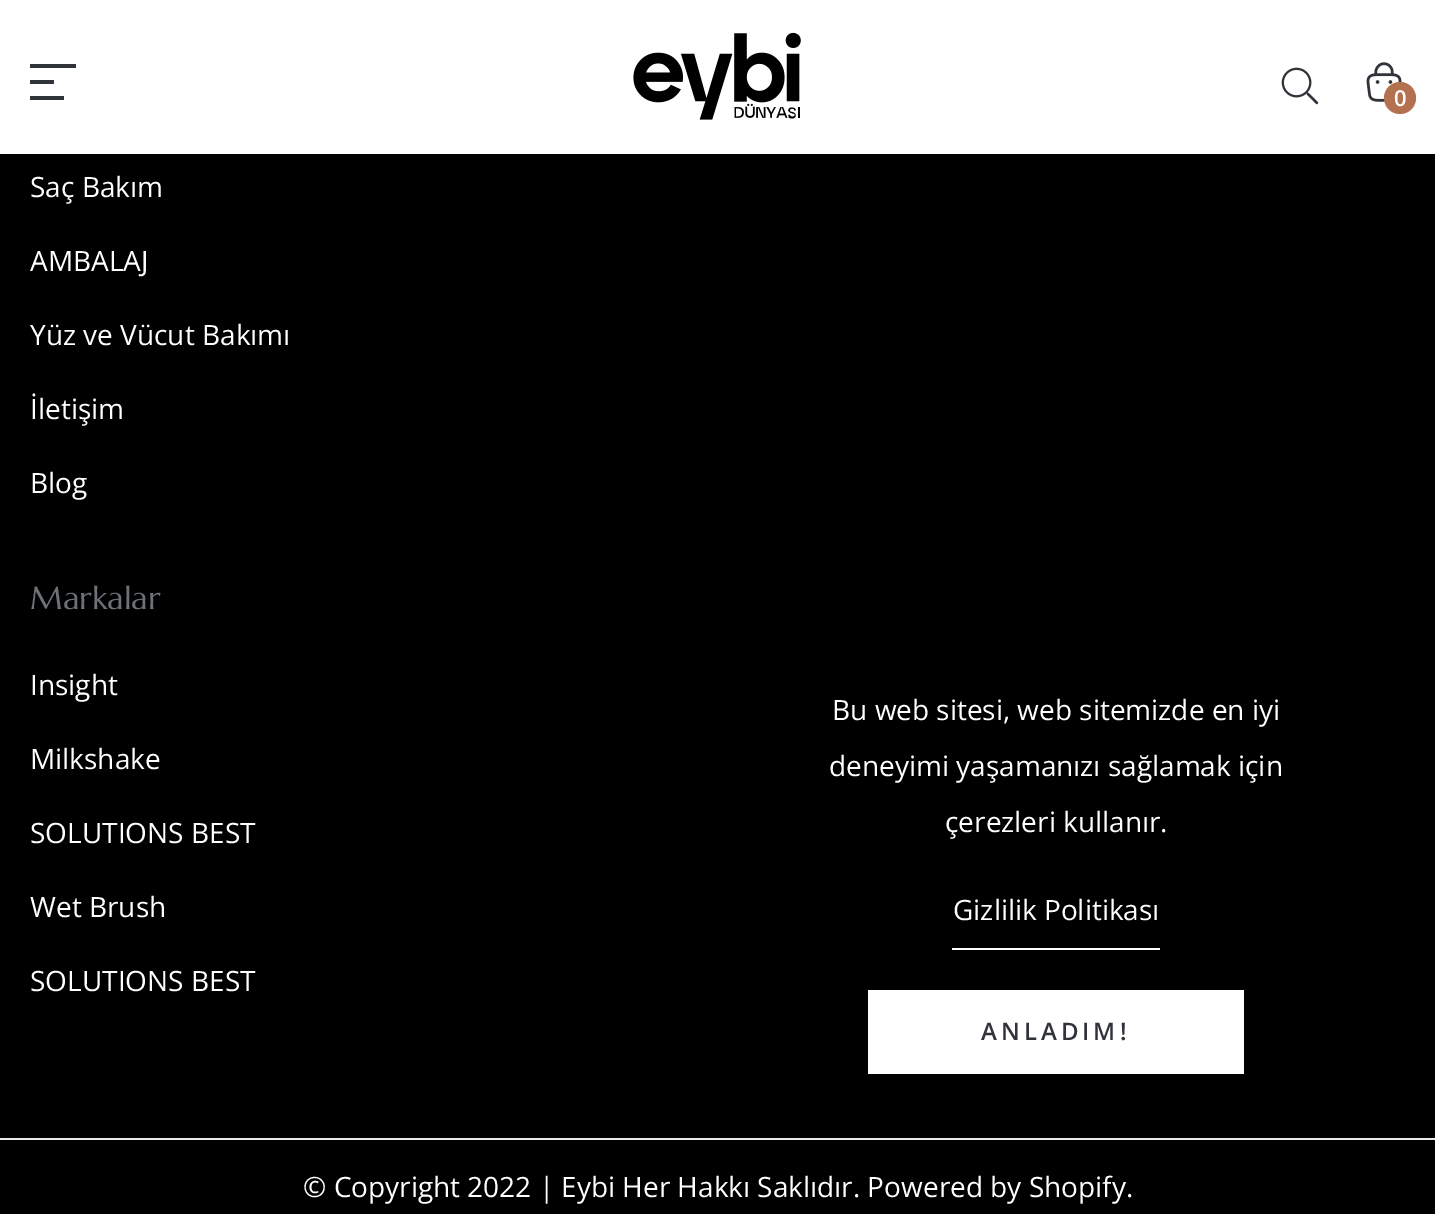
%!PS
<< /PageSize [1435 1214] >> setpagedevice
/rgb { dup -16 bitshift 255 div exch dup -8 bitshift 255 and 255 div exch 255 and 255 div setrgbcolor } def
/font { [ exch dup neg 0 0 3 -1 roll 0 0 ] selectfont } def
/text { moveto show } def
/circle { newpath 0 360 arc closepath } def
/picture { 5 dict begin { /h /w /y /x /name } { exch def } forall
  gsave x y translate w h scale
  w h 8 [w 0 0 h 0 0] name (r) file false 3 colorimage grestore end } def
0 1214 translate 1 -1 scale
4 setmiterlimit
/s1 { /OpenSans-SemiBold 22 font 16#FFFFFF rgb } def
/s2 { /OpenSans-Regular 28 font 16#FFFFFF rgb } def
/s3 { /Marcellus-Regular 32 font 16#6D7178 rgb } def
16#000000 rgb
0 0 1435 1214 rectfill
16#FFFFFF rgb
0 0 1435 154 rectfill
16#30343A rgb
30 64 46 4 rectfill
30 80 24 4 rectfill
30 96 34 4 rectfill
(pic1.raw) 633 32 168 88 picture
(pic2.raw) 1281 67 38 38 picture
(pic3.raw) 1366 62 36 40 picture
16#B4714F rgb
1400 98 16 circle fill
s1
(0) 1394 106 text
s2
(Saç Bakım) 30 197 text
(AMBALAJ) 30 271 text
(Yüz ve Vücut Bakımı) 30 345 text
(İletişim) 30 419 text
(Blog) 30 493 text
s3
(Markalar) 30 609 text
s2
(Insight) 30 695 text
(Milkshake) 30 769 text
(SOLUTIONS BEST) 30 843 text
(Wet Brush) 30 917 text
(SOLUTIONS BEST) 30 991 text
16#EBEBEB rgb
0 1138 1435 2 rectfill
s2
(© Copyright 2022 | Eybi Her Hakkı Saklıdır. Powered by Shopify.) 303 1197 text
(Bu web sitesi, web sitemizde en iyi) 832 720 text
(deneyimi yaşamanızı sağlamak için) 829 776 text
(çerezleri kullanır.) 945 832 text
952 948 208 2 rectfill
(Gizlilik Politikası) 953 920 text
868 990 376 84 rectfill
/OpenSans-SemiBold 24 font
16#30343A rgb
981 1040 moveto 4 0 (ANLADIM!) ashow
showpage
